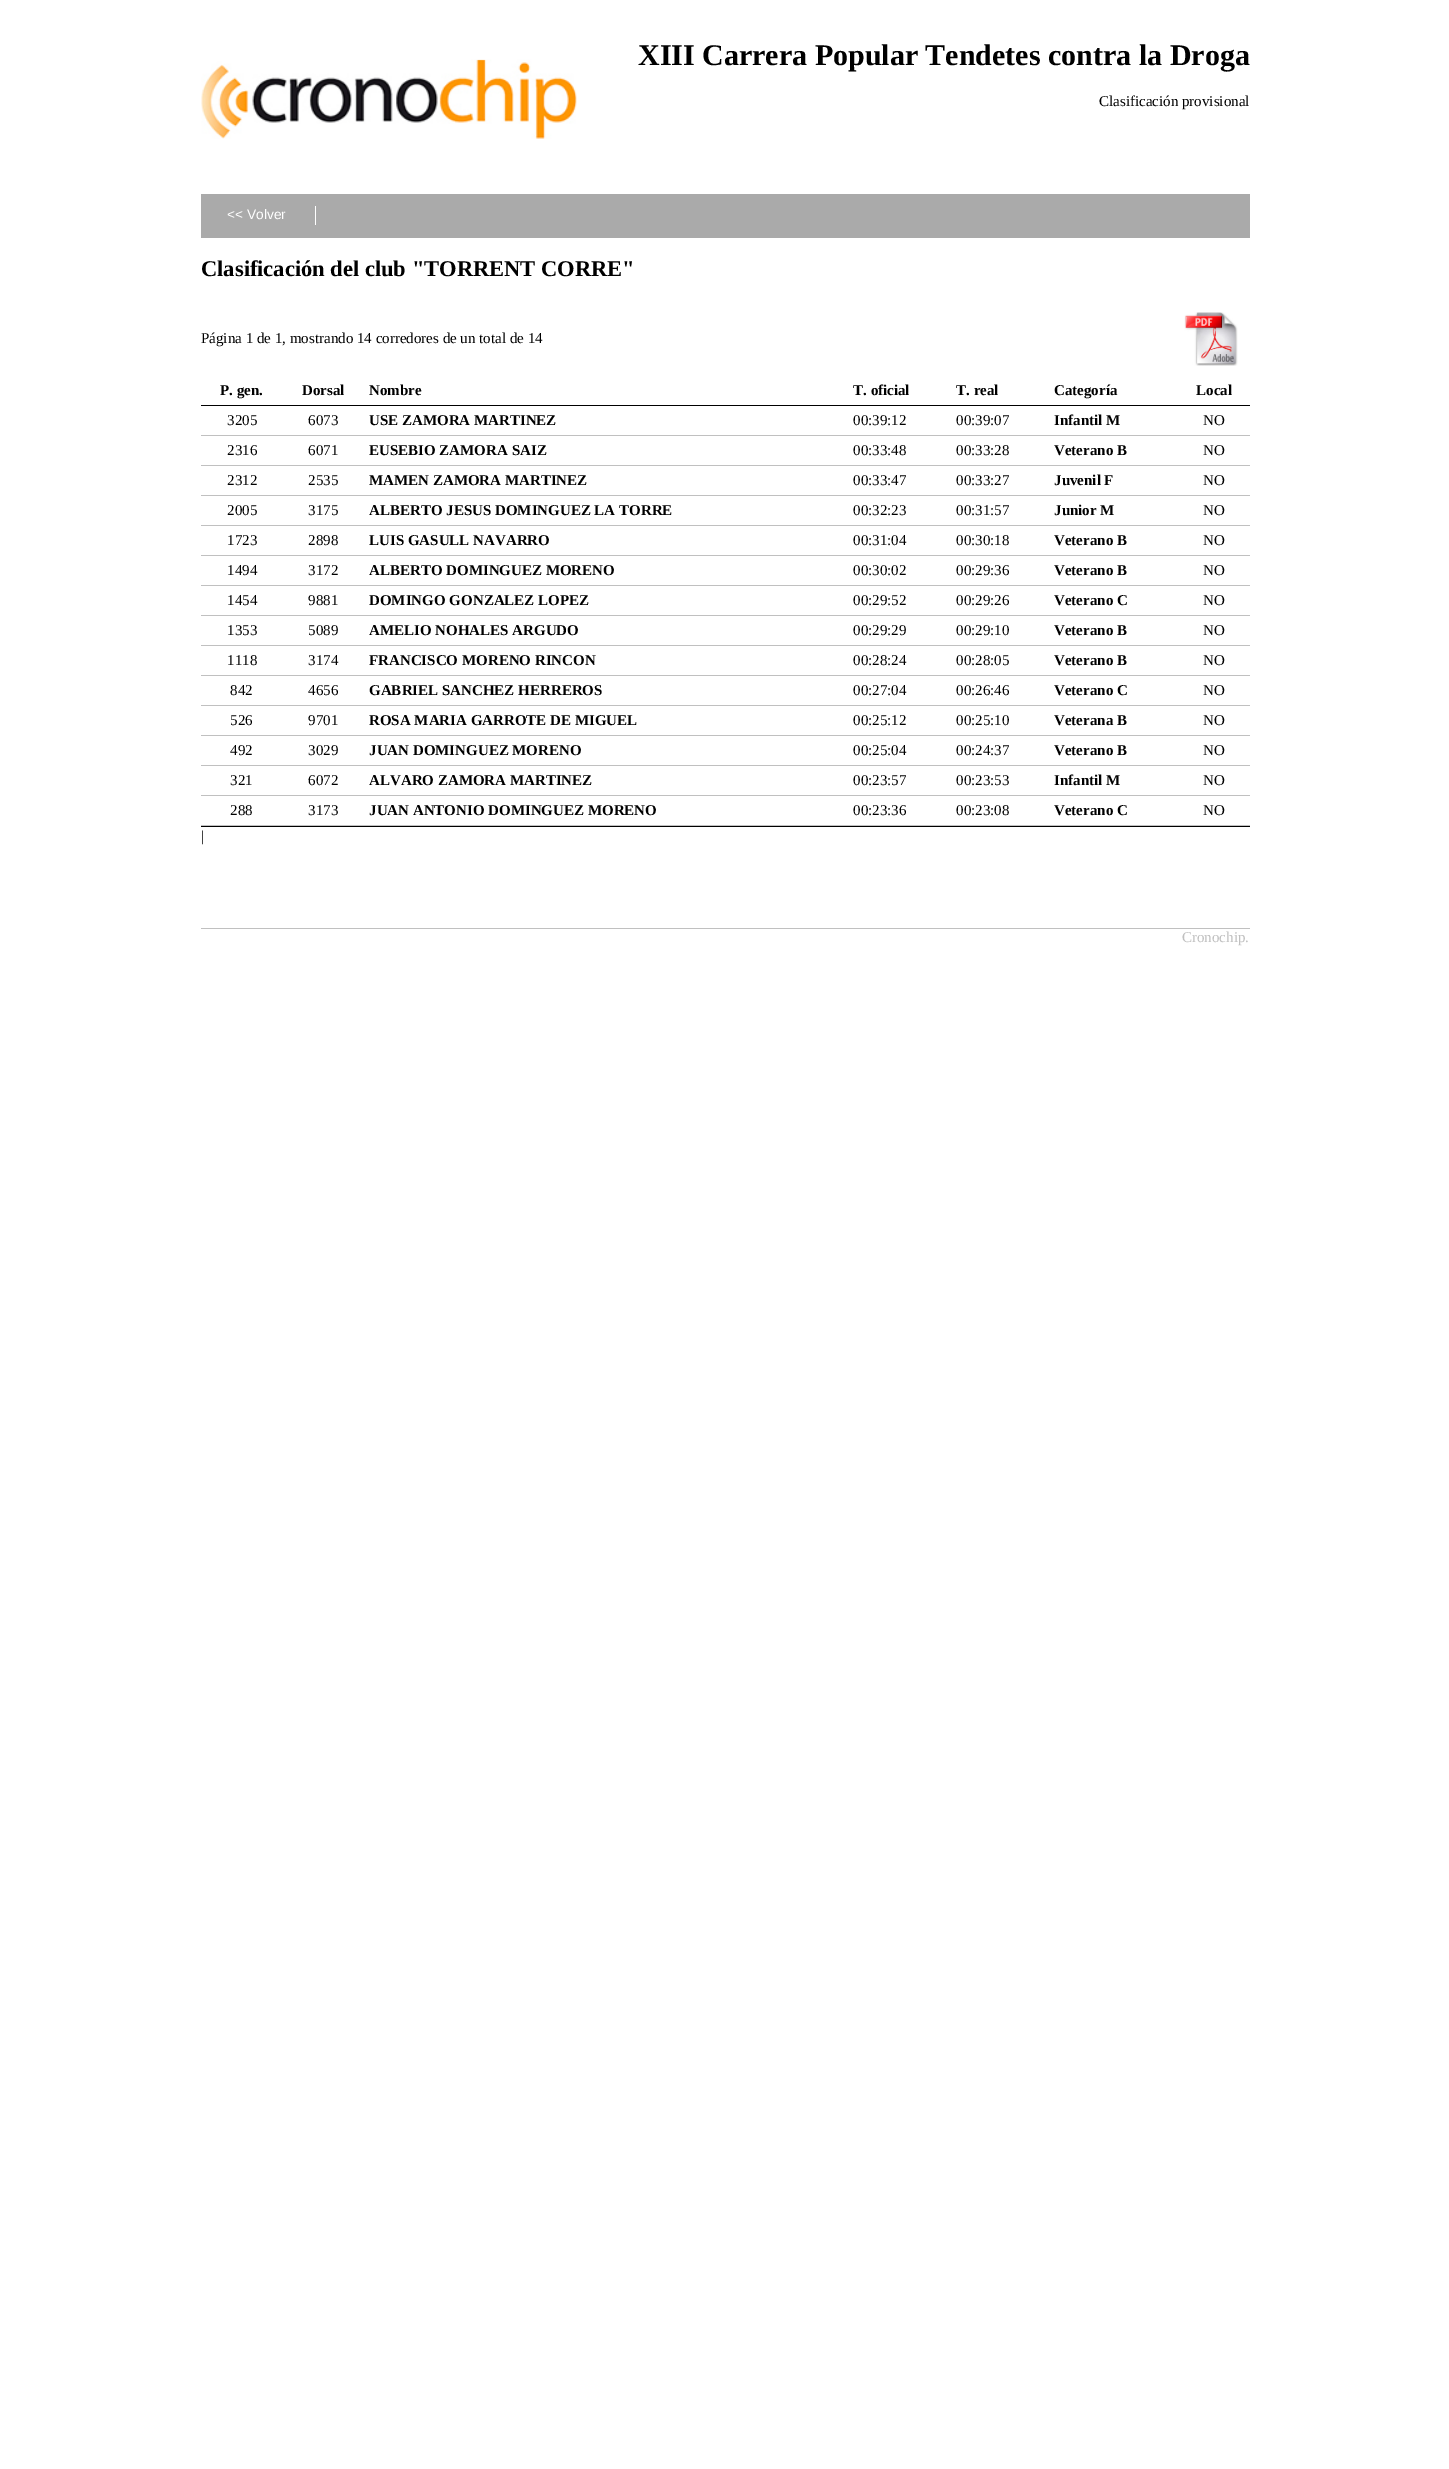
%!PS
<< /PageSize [1449 2469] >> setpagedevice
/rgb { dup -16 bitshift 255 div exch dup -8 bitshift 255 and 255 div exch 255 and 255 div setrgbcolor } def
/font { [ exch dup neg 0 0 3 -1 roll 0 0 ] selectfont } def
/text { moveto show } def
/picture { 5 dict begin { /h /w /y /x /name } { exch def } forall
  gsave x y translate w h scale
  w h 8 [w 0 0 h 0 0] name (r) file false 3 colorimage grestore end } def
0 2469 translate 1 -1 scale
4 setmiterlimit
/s1 { /LiberationSerif-Bold 30 font 16#000000 rgb } def
/s2 { /LiberationSerif-Regular 15 font 16#000000 rgb } def
/s3 { /LiberationSans-Regular 13.75 font 16#FFFFFF rgb } def
/s4 { /LiberationSerif-Bold 22.5 font 16#000000 rgb } def
/s5 { /LiberationSerif-Bold 15 font 16#000000 rgb } def
/s6 { /LiberationSerif-Regular 15 font 16#C0C0C0 rgb } def
16#FFFFFF rgb
0 0 1449 2469 rectfill
(pic1.raw) 201 59 376 80 picture
s1
(XIII Carrera Popular Tendetes contra la Droga) 638 65 text
s2
(Clasificación provisional) 1099 106 text
16#AAAAAA rgb
201 194 1049 44 rectfill
s3
(<< Volver) 227 219 text
315 206 1 19 rectfill
s4
(Clasificación del club "TORRENT CORRE") 201 276 text
s2
(Página 1 de 1, mostrando 14 corredores de un total de 14) 201 343 text
(pic2.raw) 1184 312 54 54 picture
201 405 1049 1 rectfill
s5
(P. gen.) 220 395 text
(Dorsal) 302 395 text
(Nombre) 369 395 text
(T. oficial) 853 395 text
(T. real) 956 395 text
(Categoría) 1054 395 text
(Local) 1196 395 text
16#C0C0C0 rgb
201 435 1049 1 rectfill
s2
(3205) 227 425 text
(6073) 308 425 text
s5
(USE ZAMORA MARTINEZ) 369 425 text
s2
(00:39:12) 853 425 text
(00:39:07) 956 425 text
s5
(Infantil M) 1054 425 text
s2
(NO) 1203 425 text
16#C0C0C0 rgb
201 465 1049 1 rectfill
s2
(2316) 227 455 text
(6071) 308 455 text
s5
(EUSEBIO ZAMORA SAIZ) 369 455 text
s2
(00:33:48) 853 455 text
(00:33:28) 956 455 text
s5
(Veterano B) 1054 455 text
s2
(NO) 1203 455 text
16#C0C0C0 rgb
201 495 1049 1 rectfill
s2
(2312) 227 485 text
(2535) 308 485 text
s5
(MAMEN ZAMORA MARTINEZ) 369 485 text
s2
(00:33:47) 853 485 text
(00:33:27) 956 485 text
s5
(Juvenil F) 1054 485 text
s2
(NO) 1203 485 text
16#C0C0C0 rgb
201 525 1049 1 rectfill
s2
(2005) 227 515 text
(3175) 308 515 text
s5
(ALBERTO JESUS DOMINGUEZ LA TORRE) 369 515 text
s2
(00:32:23) 853 515 text
(00:31:57) 956 515 text
s5
(Junior M) 1054 515 text
s2
(NO) 1203 515 text
16#C0C0C0 rgb
201 555 1049 1 rectfill
s2
(1723) 227 545 text
(2898) 308 545 text
s5
(LUIS GASULL NAVARRO) 369 545 text
s2
(00:31:04) 853 545 text
(00:30:18) 956 545 text
s5
(Veterano B) 1054 545 text
s2
(NO) 1203 545 text
16#C0C0C0 rgb
201 585 1049 1 rectfill
s2
(1494) 227 575 text
(3172) 308 575 text
s5
(ALBERTO DOMINGUEZ MORENO) 369 575 text
s2
(00:30:02) 853 575 text
(00:29:36) 956 575 text
s5
(Veterano B) 1054 575 text
s2
(NO) 1203 575 text
16#C0C0C0 rgb
201 615 1049 1 rectfill
s2
(1454) 227 605 text
(9881) 308 605 text
s5
(DOMINGO GONZALEZ LOPEZ) 369 605 text
s2
(00:29:52) 853 605 text
(00:29:26) 956 605 text
s5
(Veterano C) 1054 605 text
s2
(NO) 1203 605 text
16#C0C0C0 rgb
201 645 1049 1 rectfill
s2
(1353) 227 635 text
(5089) 308 635 text
s5
(AMELIO NOHALES ARGUDO) 369 635 text
s2
(00:29:29) 853 635 text
(00:29:10) 956 635 text
s5
(Veterano B) 1054 635 text
s2
(NO) 1203 635 text
16#C0C0C0 rgb
201 675 1049 1 rectfill
s2
(1118) 227 665 text
(3174) 308 665 text
s5
(FRANCISCO MORENO RINCON) 369 665 text
s2
(00:28:24) 853 665 text
(00:28:05) 956 665 text
s5
(Veterano B) 1054 665 text
s2
(NO) 1203 665 text
16#C0C0C0 rgb
201 705 1049 1 rectfill
s2
(842) 230 695 text
(4656) 308 695 text
s5
(GABRIEL SANCHEZ HERREROS) 369 695 text
s2
(00:27:04) 853 695 text
(00:26:46) 956 695 text
s5
(Veterano C) 1054 695 text
s2
(NO) 1203 695 text
16#C0C0C0 rgb
201 735 1049 1 rectfill
s2
(526) 230 725 text
(9701) 308 725 text
s5
(ROSA MARIA GARROTE DE MIGUEL) 369 725 text
s2
(00:25:12) 853 725 text
(00:25:10) 956 725 text
s5
(Veterana B) 1054 725 text
s2
(NO) 1203 725 text
16#C0C0C0 rgb
201 765 1049 1 rectfill
s2
(492) 230 755 text
(3029) 308 755 text
s5
(JUAN DOMINGUEZ MORENO) 369 755 text
s2
(00:25:04) 853 755 text
(00:24:37) 956 755 text
s5
(Veterano B) 1054 755 text
s2
(NO) 1203 755 text
16#C0C0C0 rgb
201 795 1049 1 rectfill
s2
(321) 230 785 text
(6072) 308 785 text
s5
(ALVARO ZAMORA MARTINEZ) 369 785 text
s2
(00:23:57) 853 785 text
(00:23:53) 956 785 text
s5
(Infantil M) 1054 785 text
s2
(NO) 1203 785 text
16#C0C0C0 rgb
201 825 1049 1 rectfill
s2
(288) 230 815 text
(3173) 308 815 text
s5
(JUAN ANTONIO DOMINGUEZ MORENO) 369 815 text
s2
(00:23:36) 853 815 text
(00:23:08) 956 815 text
s5
(Veterano C) 1054 815 text
s2
(NO) 1203 815 text
201 826 1049 1 rectfill
(|) 201 841 text
16#C0C0C0 rgb
201 928 1049 1 rectfill
(Cronochip.) 1182 942 text
showpage
